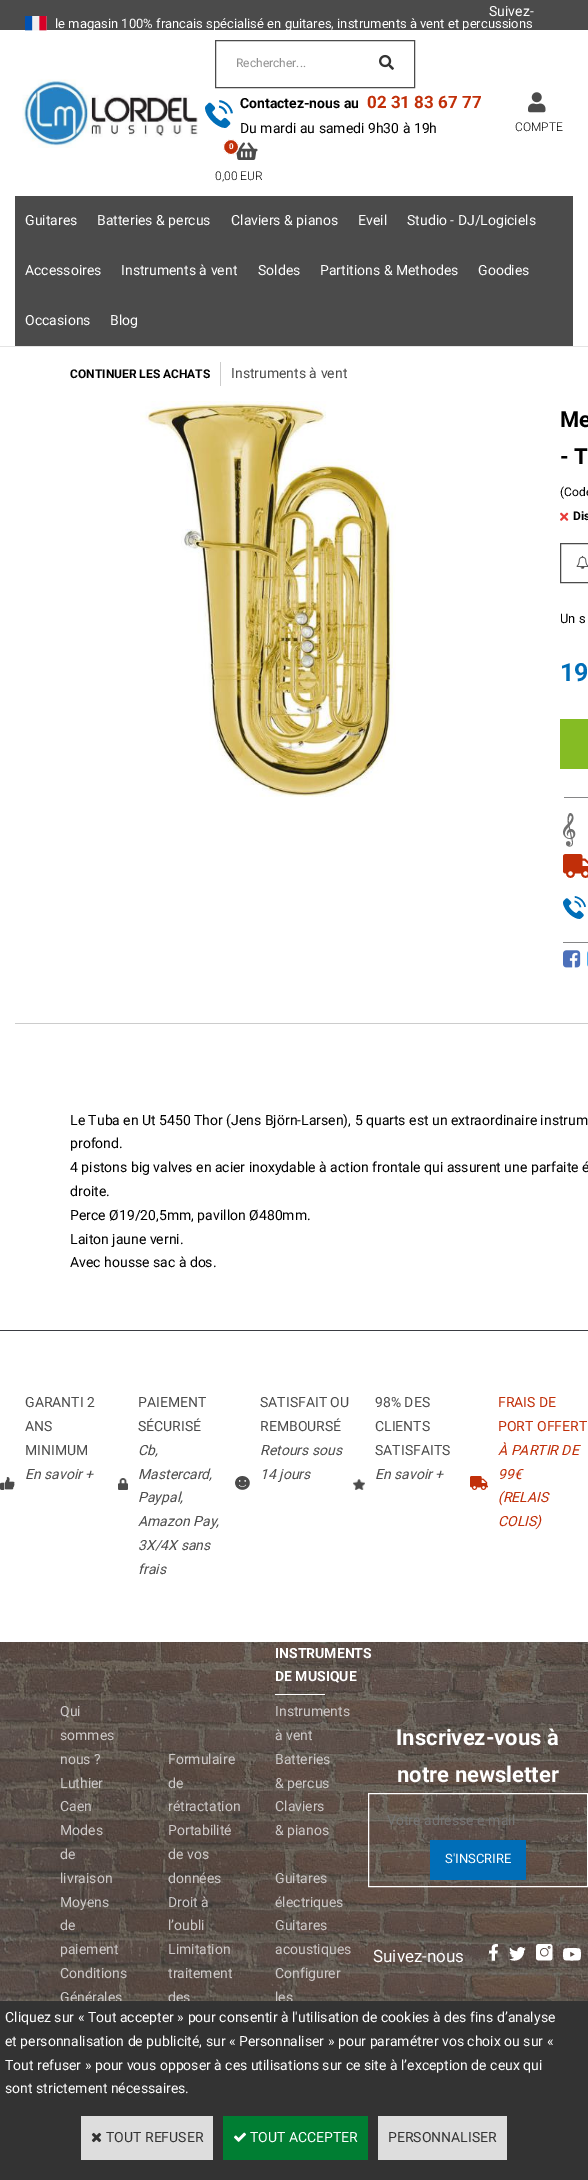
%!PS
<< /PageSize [588 2180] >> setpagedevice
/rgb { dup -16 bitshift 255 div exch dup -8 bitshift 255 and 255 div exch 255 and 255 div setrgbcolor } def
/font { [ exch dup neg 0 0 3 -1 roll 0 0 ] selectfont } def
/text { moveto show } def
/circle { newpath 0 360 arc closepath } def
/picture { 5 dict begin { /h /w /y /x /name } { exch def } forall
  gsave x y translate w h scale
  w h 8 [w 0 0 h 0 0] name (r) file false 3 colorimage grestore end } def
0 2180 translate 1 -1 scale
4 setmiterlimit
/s1 { /Roboto-Regular 14 font 16#FFFFFF rgb } def
/s2 { /Roboto-Regular 13 font 16#FFFFFF rgb } def
/s3 { /Roboto-Regular 12 font 16#919191 rgb } def
/s4 { /Roboto-Bold 14 font 16#000000 rgb } def
/s5 { /Roboto-Bold 17 font 16#C12F09 rgb } def
/s6 { /Roboto-Regular 14 font 16#000000 rgb } def
/s7 { /Roboto-Light 12 font 16#000000 rgb } def
/s8 { /Roboto-Bold 8 font 16#FFFFFF rgb } def
/s9 { /Roboto-Bold 12 font 16#000000 rgb } def
/s10 { /Roboto-Regular 14 font 16#4B4B4B rgb } def
/s11 { /Roboto-Bold 22 font 16#000000 rgb } def
/s12 { /Roboto-Regular 12 font 16#000000 rgb } def
/s13 { /Roboto-Regular 13 font 16#000000 rgb } def
/s14 { /Roboto-Bold 25 font 16#006EB8 rgb } def
/s15 { /Roboto-Italic 14 font 16#4B4B4B rgb } def
/s16 { /Roboto-Regular 14 font 16#C12F09 rgb } def
/s17 { /Roboto-Italic 14 font 16#C12F09 rgb } def
/s18 { /Roboto-Regular 14 font 16#CECAC9 rgb } def
/s19 { /Roboto-Bold 14 font 16#FFFFFF rgb } def
/s20 { /Roboto-Bold 22 font 16#FFFFFF rgb } def
/s21 { /Roboto-Regular 14 font 16#757575 rgb } def
/s22 { /Roboto-Regular 17 font 16#FFFFFF rgb } def
/s23 { /Roboto-Regular 14 font 16#333333 rgb } def
16#FFFFFF rgb
0 0 588 2180 rectfill
16#E4E4E4 rgb
0 346 588 1 rectfill
16#4B4B4B rgb
0 0 588 30 rectfill
s1
(Suivez-) 489 16 text
(pic1.raw) 25 16 22 15 picture
s2
(le magasin 100% francais spécialisé en guitares, instruments à vent et percussions) 55 28 text
(pic2.raw) 22 79 176 69 picture
16#4B4B4B rgb
215.5 40.5 199 47 rectstroke
s3
(Rechercher...) 236 67 text
(pic3.raw) 379 54 15 16 picture
(pic4.raw) 205 100 28 28 picture
s4
(Contactez-nous au) 240 108 text
s5
(02 31 83 67 77) 367 108 text
s6
(Du mardi au samedi 9h30 à 19h) 240 133 text
(pic5.raw) 528 92 18 21 picture
s7
(COMPTE) 515 131 text
(pic6.raw) 236 142 22 18 picture
16#C12F09 rgb
231 147 7.5 circle gsave fill grestore
16#FFFFFF rgb
stroke
s8
(0) 229 149 text
s7
(0,00 EUR) 215 180 text
16#4B4B4B rgb
15 196 558 150 rectfill
s1
(Guitares) 25 225 text
(Batteries & percus) 97 225 text
(Claviers & pianos) 231 225 text
(Eveil) 358 225 text
(Studio - DJ/Logiciels) 407 225 text
(Accessoires) 25 275 text
(Instruments à vent) 121 275 text
(Soldes) 258 275 text
(Partitions & Methodes) 320 275 text
(Goodies) 478 275 text
(Occasions) 25 325 text
(Blog) 110 325 text
s9
(CONTINUER LES ACHATS) 70 378 text
16#CCCCCC rgb
220 362 1 24 rectfill
s10
(Instruments à vent) 231 378 text
(pic7.raw) 140 401 256 396 picture
s11
(Me) 560 427 text
(- T) 560 464 text
s12
(\(Code) 560 496 text
(pic8.raw) 560 512 9 9 picture
s9
(Dis) 573 520 text
16#4B4B4B rgb
560.5 543.5 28 39 rectstroke
(pic9.raw) 576 555 12 14 picture
s13
(Un s) 560 623 text
s14
(19) 560 681 text
16#85BC24 rgb
560 719 28 50 rectfill
16#868687 rgb
564 797 24 1 rectfill
563 942 25 1 rectfill
(pic10.raw) 563 813 13 34 picture
(pic11.raw) 563 854 25 24 picture
(pic12.raw) 563 896 23 23 picture
(pic13.raw) 563 950 18 18 picture
(pic14.raw) 587 951 1 16 picture
16#CCCCCC rgb
15 1023 573 1 rectfill
s6
(Le Tuba en Ut 5450 Thor \(Jens Björn-Larsen\), 5 quarts est un extraordinaire instrum) 70 1125 text
(profond.) 70 1148 text
(4 pistons big valves en acier inoxydable à action frontale qui assurent une parfaite é) 70 1172 text
(droite.) 70 1196 text
(Perce Ø19/20,5mm, pavillon Ø480mm.) 70 1220 text
(Laiton jaune verni.) 70 1244 text
(Avec housse sac à dos.) 70 1267 text
16#3A3C42 rgb
0 1330 588 1 rectfill
s10
(GARANTI 2) 25 1407 text
(ANS) 25 1431 text
(MINIMUM) 25 1455 text
s15
(En savoir +) 25 1479 text
(pic15.raw) 0 1477 15 13 picture
(pic16.raw) 118 1478 10 12 picture
s10
(PAIEMENT) 138 1407 text
(SÉCURISÉ) 138 1431 text
s15
(Cb,) 138 1455 text
(Mastercard,) 138 1479 text
(Paypal,) 138 1502 text
(Amazon Pay,) 138 1526 text
(3X/4X sans) 138 1550 text
(frais) 138 1574 text
(pic17.raw) 235 1476 15 14 picture
s10
(SATISFAIT OU) 260 1407 text
(REMBOURSÉ) 260 1431 text
s15
(Retours sous) 260 1455 text
(14 jours) 260 1479 text
s10
(98% DES) 375 1407 text
(CLIENTS) 375 1431 text
(SATISFAITS) 375 1455 text
s15
(En savoir +) 375 1479 text
(pic18.raw) 353 1479 12 11 picture
(pic19.raw) 470 1476 18 14 picture
s16
(FRAIS DE) 498 1407 text
(PORT OFFERT) 498 1431 text
s17
(À PARTIR DE) 498 1455 text
(99€) 498 1479 text
(\(RELAIS) 498 1502 text
(COLIS\)) 498 1526 text
(pic20.raw) 0 1642 588 359 picture
s18
(Qui) 60 1716 text
(sommes) 60 1740 text
(nous ?) 60 1764 text
(Luthier) 60 1788 text
(Caen) 60 1811 text
(Modes) 60 1835 text
(de) 60 1859 text
(livraison) 60 1883 text
(Moyens) 60 1907 text
(de) 60 1930 text
(paiement) 60 1954 text
(Conditions) 60 1978 text
(Générales) 60 2002 text
(Formulaire) 168 1764 text
(de) 168 1788 text
(rétractation) 168 1811 text
(Portabilité) 168 1835 text
(de vos) 168 1859 text
(données) 168 1883 text
(Droit à) 168 1907 text
(l’oubli) 168 1930 text
(Limitation) 168 1954 text
(traitement) 168 1978 text
(des) 168 2002 text
s19
(INSTRUMENTS) 275 1658 text
(DE MUSIQUE) 275 1681 text
275 1694 50 1 rectfill
s18
(Instruments) 275 1716 text
(à vent) 275 1740 text
(Batteries) 275 1764 text
(& percus) 275 1788 text
(Claviers) 275 1811 text
(& pianos) 275 1835 text
(Guitares) 275 1883 text
(électriques) 275 1907 text
(Guitares) 275 1930 text
(acoustiques) 275 1954 text
(Configurer) 275 1978 text
(les) 275 2002 text
s20
(Inscrivez-vous à) 396 1745 text
(notre newsletter) 397 1782 text
368.5 1793.5 219 93 rectstroke
s21
(Votre adresse e-mail) 387 1825 text
16#006EB8 rgb
430 1840 96 40 rectfill
s2
(S'INSCRIRE) 445 1863 text
s22
(Suivez-nous) 373 1962 text
(pic21.raw) 489 1944 9 17 picture
(pic22.raw) 509 1947 17 14 picture
(pic23.raw) 536 1944 17 17 picture
(pic24.raw) 563 1948 18 13 picture
16#333333 rgb
0 2001 588 179 rectfill
s1
(Cliquez sur « Tout accepter » pour consentir à l'utilisation de cookies à des fins d’analyse) 5 2022 text
(et personnalisation de publicité, sur « Personnaliser » pour paramétrer vos choix ou sur «) 5 2046 text
(Tout refuser » pour vous opposer à ces utilisations sur ce site à l’exception de ceux qui) 5 2070 text
(sont strictement nécessaires.) 5 2093 text
16#DDDDDD rgb
81 2116 132 44 rectfill
(pic25.raw) 91 2132 11 11 picture
s23
(TOUT REFUSER) 106 2142 text
16#007E33 rgb
223 2116 145 44 rectfill
(pic26.raw) 234 2132 12 10 picture
s1
(TOUT ACCEPTER) 250 2142 text
16#DDDDDD rgb
378 2116 129 44 rectfill
s23
(PERSONNALISER) 388 2142 text
showpage
